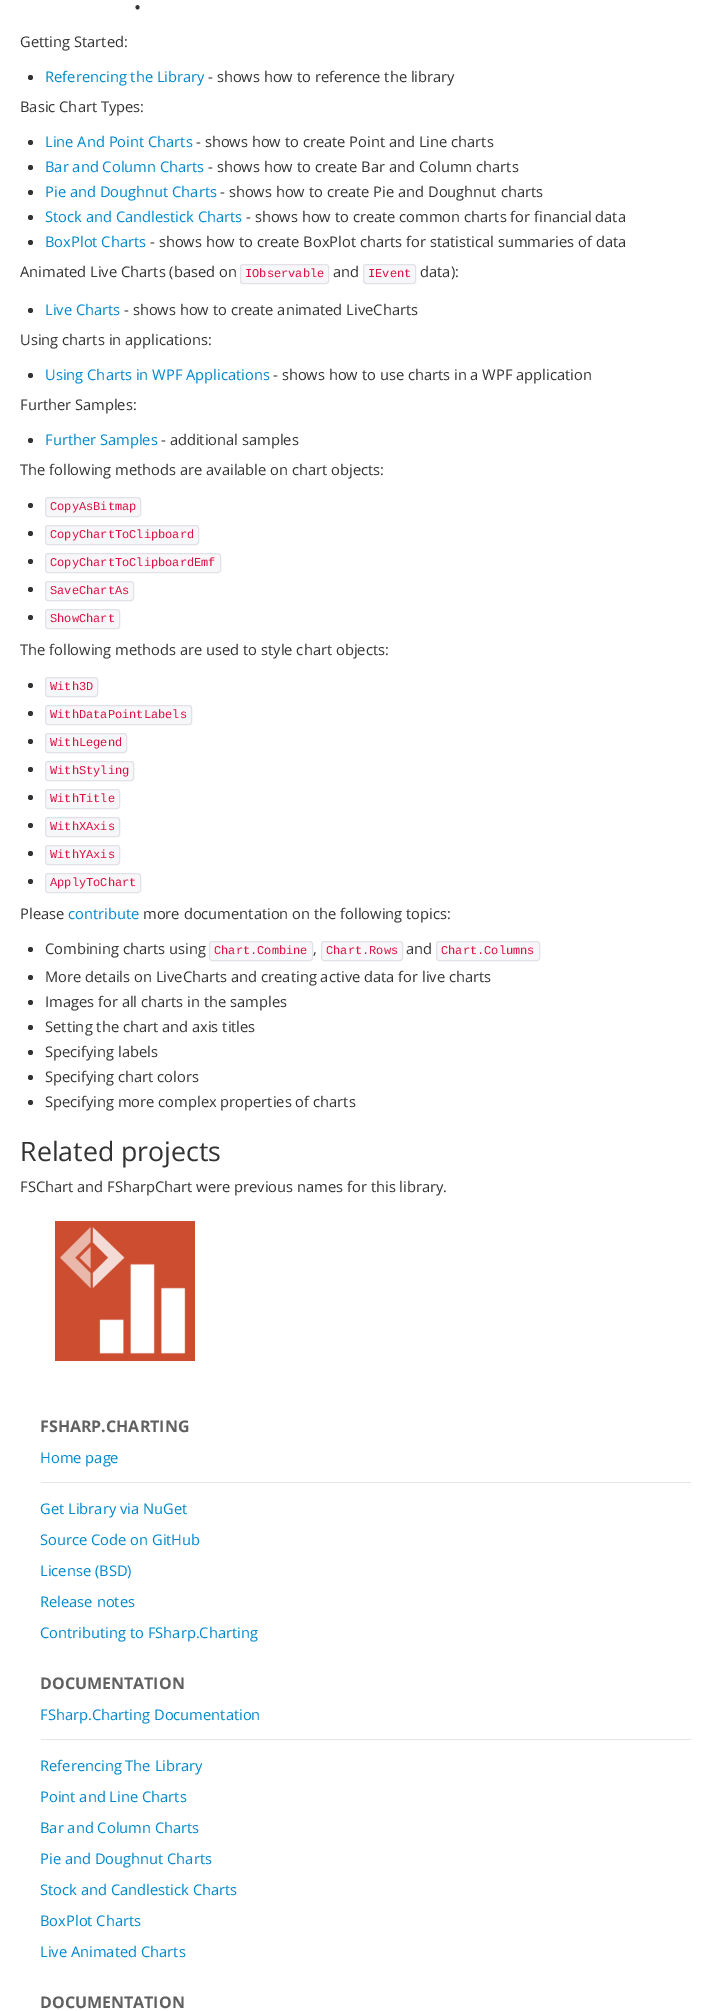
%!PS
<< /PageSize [727 2011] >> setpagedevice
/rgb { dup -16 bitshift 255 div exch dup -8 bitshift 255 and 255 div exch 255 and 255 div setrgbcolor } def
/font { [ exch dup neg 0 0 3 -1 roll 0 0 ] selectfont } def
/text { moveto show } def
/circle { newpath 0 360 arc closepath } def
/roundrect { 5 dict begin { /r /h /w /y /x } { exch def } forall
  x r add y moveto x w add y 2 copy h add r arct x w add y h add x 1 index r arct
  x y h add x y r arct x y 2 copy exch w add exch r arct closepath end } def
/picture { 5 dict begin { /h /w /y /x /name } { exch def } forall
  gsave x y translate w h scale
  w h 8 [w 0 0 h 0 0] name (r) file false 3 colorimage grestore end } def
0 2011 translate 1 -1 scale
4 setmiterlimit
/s1 { /OpenSans-Regular 35 font 16#333333 rgb } def
/s2 { /OpenSans-Regular 14.7 font 16#333333 rgb } def
/s3 { /OpenSans-Regular 14.7 font 16#0088CC rgb } def
/s4 { /LiberationMono-Regular 12 font 16#DD1144 rgb } def
/s5 { /OpenSans-Regular 26.75 font 16#333333 rgb } def
/s6 { /OpenSans-Bold 16 font 16#606060 rgb } def
16#FFFFFF rgb
0 0 727 2011 rectfill
s1
(.) 133 9 text
s2
(Getting Started:) 20 47 text
30.5 77.5 2.5 circle fill
s3
(Referencing the Library) 45 82 text
s2
(- shows how to reference the library) 208 82 text
(Basic Chart Types:) 20 112 text
30.5 142.5 2.5 circle fill
s3
(Line And Point Charts) 45 147 text
s2
(- shows how to create Point and Line charts) 196 147 text
30.5 167.5 2.5 circle fill
s3
(Bar and Column Charts) 45 172 text
s2
(- shows how to create Bar and Column charts) 208 172 text
30.5 192.5 2.5 circle fill
s3
(Pie and Doughnut Charts) 45 197 text
s2
(- shows how to create Pie and Doughnut charts) 220 197 text
30.5 217.5 2.5 circle fill
s3
(Stock and Candlestick Charts) 45 222 text
s2
(- shows how to create common charts for financial data) 246 222 text
30.5 242.5 2.5 circle fill
s3
(BoxPlot Charts) 45 247 text
s2
(- shows how to create BoxPlot charts for statistical summaries of data) 150 247 text
(Animated Live Charts \(based on) 20 277 text
16#F7F7F9 rgb
240.5 264.5 88 19 2.5 roundrect gsave fill grestore
16#E1E1E8 rgb
stroke
s4
(IObservable) 245 277 text
s2
(and) 333 277 text
16#F7F7F9 rgb
363.5 264.5 52 19 2.5 roundrect gsave fill grestore
16#E1E1E8 rgb
stroke
s4
(IEvent) 368 277 text
s2
(data\):) 420 277 text
30.5 310.5 2.5 circle fill
s3
(Live Charts) 45 315 text
s2
(- shows how to create animated LiveCharts) 124 315 text
(Using charts in applications:) 20 345 text
30.5 375.5 2.5 circle fill
s3
(Using Charts in WPF Applications) 45 380 text
s2
(- shows how to use charts in a WPF application) 273 380 text
(Further Samples:) 20 410 text
30.5 440.5 2.5 circle fill
s3
(Further Samples) 45 445 text
s2
(- additional samples) 161 445 text
(The following methods are available on chart objects:) 20 475 text
30.5 505.5 2.5 circle fill
16#F7F7F9 rgb
45.5 497.5 95 19 2.5 roundrect gsave fill grestore
16#E1E1E8 rgb
stroke
s4
(CopyAsBitmap) 50 510 text
16#333333 rgb
30.5 533.5 2.5 circle fill
16#F7F7F9 rgb
45.5 525.5 153 19 2.5 roundrect gsave fill grestore
16#E1E1E8 rgb
stroke
s4
(CopyChartToClipboard) 50 538 text
16#333333 rgb
30.5 561.5 2.5 circle fill
16#F7F7F9 rgb
45.5 553.5 175 19 2.5 roundrect gsave fill grestore
16#E1E1E8 rgb
stroke
s4
(CopyChartToClipboardEmf) 50 566 text
16#333333 rgb
30.5 589.5 2.5 circle fill
16#F7F7F9 rgb
45.5 581.5 88 19 2.5 roundrect gsave fill grestore
16#E1E1E8 rgb
stroke
s4
(SaveChartAs) 50 594 text
16#333333 rgb
30.5 617.5 2.5 circle fill
16#F7F7F9 rgb
45.5 609.5 74 19 2.5 roundrect gsave fill grestore
16#E1E1E8 rgb
stroke
s4
(ShowChart) 50 622 text
s2
(The following methods are used to style chart objects:) 20 655 text
30.5 685.5 2.5 circle fill
16#F7F7F9 rgb
45.5 677.5 52 19 2.5 roundrect gsave fill grestore
16#E1E1E8 rgb
stroke
s4
(With3D) 50 690 text
16#333333 rgb
30.5 713.5 2.5 circle fill
16#F7F7F9 rgb
45.5 705.5 146 19 2.5 roundrect gsave fill grestore
16#E1E1E8 rgb
stroke
s4
(WithDataPointLabels) 50 718 text
16#333333 rgb
30.5 741.5 2.5 circle fill
16#F7F7F9 rgb
45.5 733.5 81 19 2.5 roundrect gsave fill grestore
16#E1E1E8 rgb
stroke
s4
(WithLegend) 50 746 text
16#333333 rgb
30.5 769.5 2.5 circle fill
16#F7F7F9 rgb
45.5 761.5 88 19 2.5 roundrect gsave fill grestore
16#E1E1E8 rgb
stroke
s4
(WithStyling) 50 774 text
16#333333 rgb
30.5 797.5 2.5 circle fill
16#F7F7F9 rgb
45.5 789.5 74 19 2.5 roundrect gsave fill grestore
16#E1E1E8 rgb
stroke
s4
(WithTitle) 50 802 text
16#333333 rgb
30.5 825.5 2.5 circle fill
16#F7F7F9 rgb
45.5 817.5 74 19 2.5 roundrect gsave fill grestore
16#E1E1E8 rgb
stroke
s4
(WithXAxis) 50 830 text
16#333333 rgb
30.5 853.5 2.5 circle fill
16#F7F7F9 rgb
45.5 845.5 74 19 2.5 roundrect gsave fill grestore
16#E1E1E8 rgb
stroke
s4
(WithYAxis) 50 858 text
16#333333 rgb
30.5 881.5 2.5 circle fill
16#F7F7F9 rgb
45.5 873.5 95 19 2.5 roundrect gsave fill grestore
16#E1E1E8 rgb
stroke
s4
(ApplyToChart) 50 886 text
s2
(Please) 20 919 text
s3
(contribute) 68 919 text
s2
(more documentation on the following topics:) 143 919 text
30.5 949.5 2.5 circle fill
(Combining charts using) 45 954 text
16#F7F7F9 rgb
209.5 941.5 103 19 2.5 roundrect gsave fill grestore
16#E1E1E8 rgb
stroke
s4
(Chart.Combine) 214 954 text
16#F7F7F9 rgb
321.5 941.5 81 19 2.5 roundrect gsave fill grestore
16#E1E1E8 rgb
stroke
s4
(Chart.Rows) 326 954 text
s2
(and) 406 954 text
16#F7F7F9 rgb
436.5 941.5 103 19 2.5 roundrect gsave fill grestore
16#E1E1E8 rgb
stroke
s4
(Chart.Columns) 441 954 text
s2
(,) 313 954 text
30.5 977.5 2.5 circle fill
(More details on LiveCharts and creating active data for live charts) 45 982 text
30.5 1002.5 2.5 circle fill
(Images for all charts in the samples) 45 1007 text
30.5 1027.5 2.5 circle fill
(Setting the chart and axis titles) 45 1032 text
30.5 1052.5 2.5 circle fill
(Specifying labels) 45 1057 text
30.5 1077.5 2.5 circle fill
(Specifying chart colors) 45 1082 text
30.5 1102.5 2.5 circle fill
(Specifying more complex properties of charts) 45 1107 text
s5
(Related projects) 20 1161 text
s2
(FSChart and FSharpChart were previous names for this library.) 20 1192 text
(pic1.raw) 55 1221 140 140 picture
s6
(FSHARP.CHARTING) 40 1432 text
s3
(Home page) 40 1463 text
16#E5E5E5 rgb
41 1482 650 1 rectfill
s3
(Get Library via NuGet) 40 1514 text
(Source Code on GitHub) 40 1545 text
(License \(BSD\)) 40 1576 text
(Release notes) 40 1607 text
(Contributing to FSharp.Charting) 40 1638 text
s6
(DOCUMENTATION) 40 1689 text
s3
(FSharp.Charting Documentation) 40 1720 text
16#E5E5E5 rgb
41 1739 650 1 rectfill
s3
(Referencing The Library) 40 1771 text
(Point and Line Charts) 40 1802 text
(Bar and Column Charts) 40 1833 text
(Pie and Doughnut Charts) 40 1864 text
(Stock and Candlestick Charts) 40 1895 text
(BoxPlot Charts) 40 1926 text
(Live Animated Charts) 40 1957 text
s6
(DOCUMENTATION) 40 2008 text
showpage
